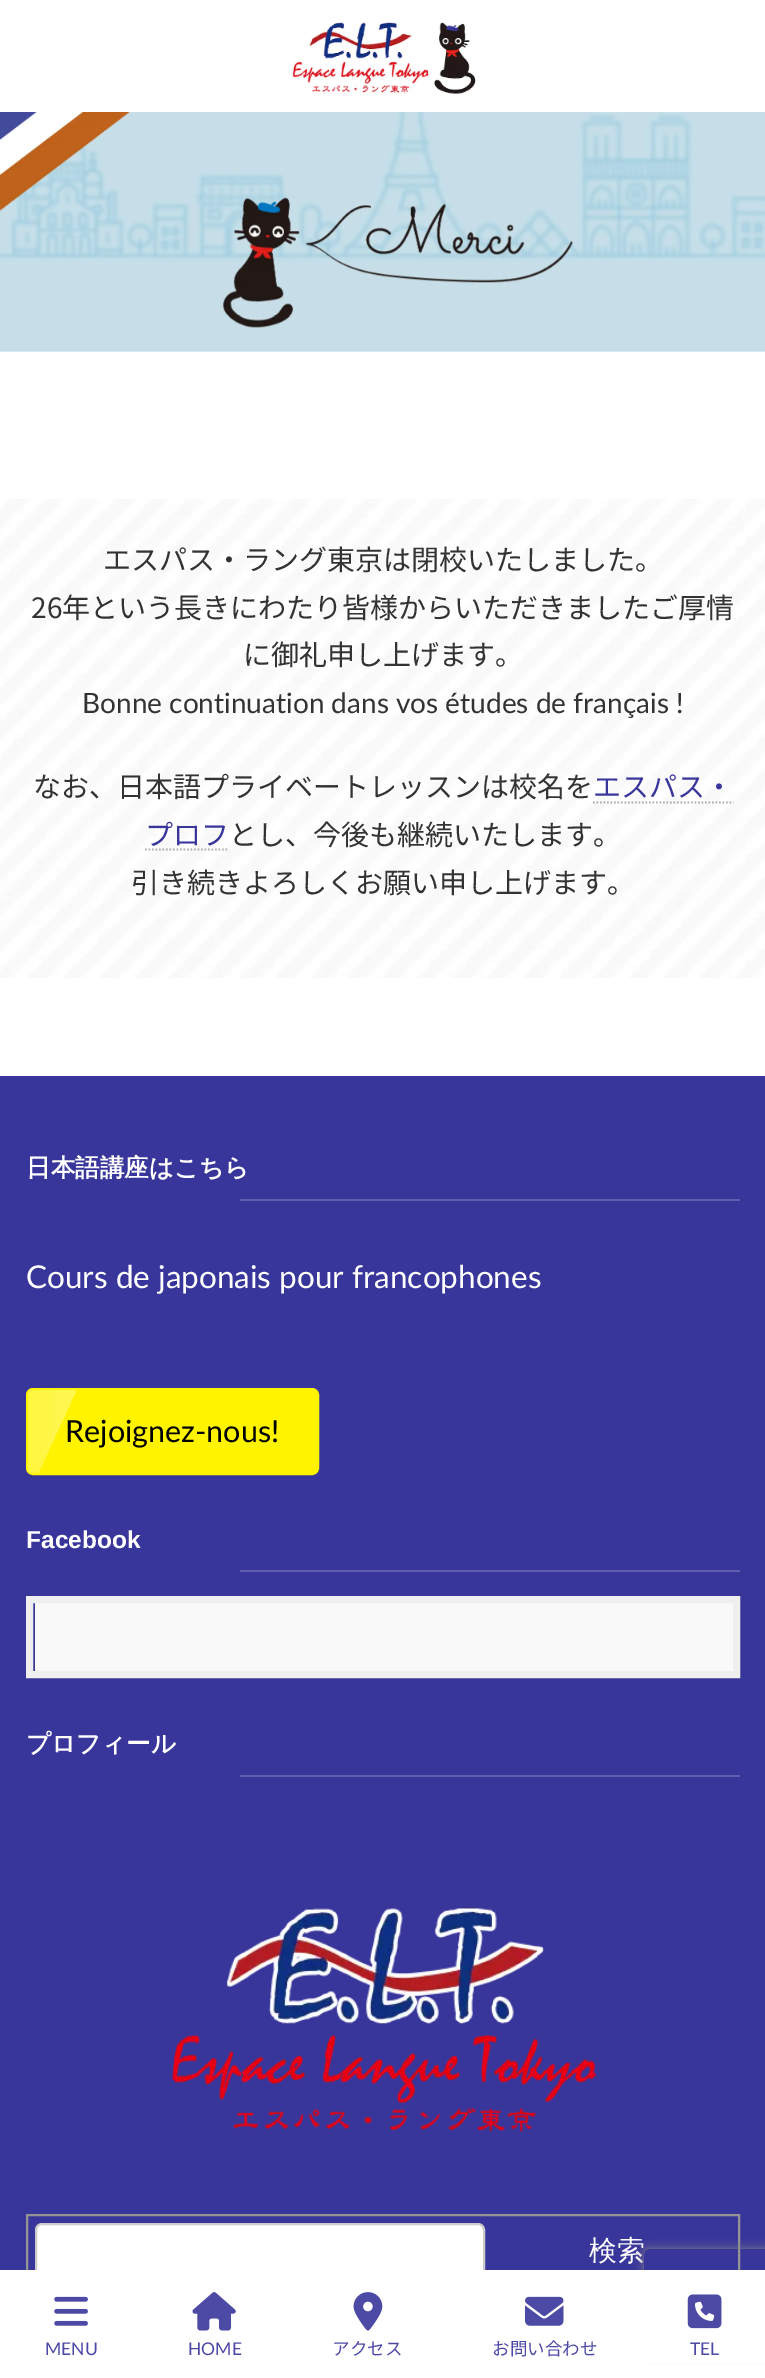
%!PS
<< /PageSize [765 2378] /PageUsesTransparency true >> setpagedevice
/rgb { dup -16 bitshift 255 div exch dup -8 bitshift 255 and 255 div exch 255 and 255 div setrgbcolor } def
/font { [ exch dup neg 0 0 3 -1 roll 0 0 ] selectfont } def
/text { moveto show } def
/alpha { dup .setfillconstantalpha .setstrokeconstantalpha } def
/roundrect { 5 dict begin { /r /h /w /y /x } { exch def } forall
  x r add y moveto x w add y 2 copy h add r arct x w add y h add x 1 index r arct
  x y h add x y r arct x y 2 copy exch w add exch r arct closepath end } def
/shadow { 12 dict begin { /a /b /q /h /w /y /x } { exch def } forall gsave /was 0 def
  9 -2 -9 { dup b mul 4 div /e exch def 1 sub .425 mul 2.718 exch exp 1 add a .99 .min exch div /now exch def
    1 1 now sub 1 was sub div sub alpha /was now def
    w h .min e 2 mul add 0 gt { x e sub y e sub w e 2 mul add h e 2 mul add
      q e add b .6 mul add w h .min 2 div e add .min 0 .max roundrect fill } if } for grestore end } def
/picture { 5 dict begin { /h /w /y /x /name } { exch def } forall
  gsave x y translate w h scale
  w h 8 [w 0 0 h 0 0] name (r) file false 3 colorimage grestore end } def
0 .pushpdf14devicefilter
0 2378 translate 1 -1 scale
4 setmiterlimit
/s1 { /NotoSansJP-Regular 28 font 16#333333 rgb } def
/s2 { /Lato-Regular 28 font 16#333333 rgb } def
/s3 { /NotoSansJP-Regular 28 font 16#39369B rgb } def
/s4 { /WenQuanYiZenHei-Bold 24.5 font 16#FFFFFF rgb } def
/s5 { /Lato-Regular 31.5 font 16#FFFFFF rgb } def
/s6 { /Lato-Regular 30.5 font 16#000000 rgb } def
/s7 { /LiberationSans-Bold 24.5 font 16#FFFFFF rgb } def
/s8 { /WenQuanYiZenHei-Medium 28 font 16#FFFFFF rgb } def
/s9 { /Lato-Regular 17.5 font 16#4D4AA5 rgb } def
/s10 { /NotoSansJP-Regular 17.5 font 16#4D4AA5 rgb } def
16#FFFFFF rgb
0 0 765 2378 rectfill
(pic1.raw) 292 22 184 73 picture
(pic2.raw) 0 112 765 240 picture
(pic3.raw) 0 499 765 479 picture
s1
(エスパス・ラング東京は閉校いたしました。) 103 570 text
(26年という長きにわたり皆様からいただきましたご厚情) 31 618 text
(に御礼申し上げます。) 243 665 text
s2
(Bonne continuation dans vos études de français !) 82 713 text
s1
(なお、日本語プライベートレッスンは校名を) 33 797 text
s3
(エスパス・) 593 797 text
0.3 alpha
16#000000 rgb
1.8 setlinewidth
[1.75 1.75] 0 setdash
593 802.5 moveto 733.5 802.5 lineto stroke
1 alpha
s3
(プロフ) 145 845 text
0.3 alpha
16#000000 rgb
145 849.5 moveto 229 849.5 lineto stroke
1 alpha
s1
(とし、今後も継続いたします。) 229 845 text
(引き続きよろしくお願い申し上げます。) 131 893 text
16#39369B rgb
0 1076 765 1194 rectfill
16#615EAF rgb
240 1199 500 2 rectfill
s4
(日本語講座はこちら) 26 1176 text
s5
(Cours de japonais pour francophones) 26 1288 text
16#FFF300 rgb
27 1389 291 85 6 roundrect gsave fill grestore
2 setlinewidth
[] 0 setdash
stroke
s6
(Rejoignez-nous!) 65 1442 text
gsave 33 1390 moveto 30 1390 28 1392 28 1395 curveto 28 1469 lineto 28 1471 29 1472 30 1473 curveto 38 1473 lineto 76 1390 lineto closepath clip newpath
<< /ShadingType 2 /ColorSpace /DeviceRGB /Coords [-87 1432 57 1432] /Extend [true true] /Function << /FunctionType 2 /Domain [0 1] /C0 [1 0.953 0] /C1 [1 0.969 0.302] /N 1 >> >> shfill grestore
16#615EAF rgb
240 1570 500 2 rectfill
s7
(Facebook) 26 1548 text
16#F9F9F9 rgb
35 1603 698 68 rectfill
16#EFEFEF rgb
7 setlinewidth
29.5 1599.5 707 75 rectstroke
16#615EAF rgb
240 1775 500 2 rectfill
s4
(プロフィール) 26 1752 text
(pic4.raw) 171 1907 426 226 picture
16#949494 rgb
2 setlinewidth
27 2215 712 73 rectstroke
16#FFFFFF rgb
36 2224 448 55 6 roundrect gsave fill grestore
16#CCCCCC rgb
stroke
s8
(検索) 589 2260 text
gsave
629 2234 moveto 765 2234 lineto 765 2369 lineto 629 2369 lineto closepath 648 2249 moveto 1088 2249 lineto 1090 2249 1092 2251 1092 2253 curveto 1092 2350 lineto 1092 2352 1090 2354 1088 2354 curveto 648 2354 lineto 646 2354 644 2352 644 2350 curveto 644 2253 lineto 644 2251 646 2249 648 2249 curveto closepath eoclip newpath
16#808080 rgb
644 2249 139 105 4 4.5 1 shadow
grestore
26 2270 739 93 rectfill
(pic5.raw) 54 2296 34 30 picture
s9
(MENU) 45 2355 text
(pic6.raw) 192 2292 44 39 picture
(HOME) 188 2355 text
(pic7.raw) 353 2292 30 39 picture
s10
(アクセス) 332 2355 text
(pic8.raw) 525 2296 39 30 picture
(お問い合わせ) 492 2355 text
(pic9.raw) 687 2294 35 35 picture
s9
(TEL) 690 2355 text
.poppdf14devicefilter showpage
